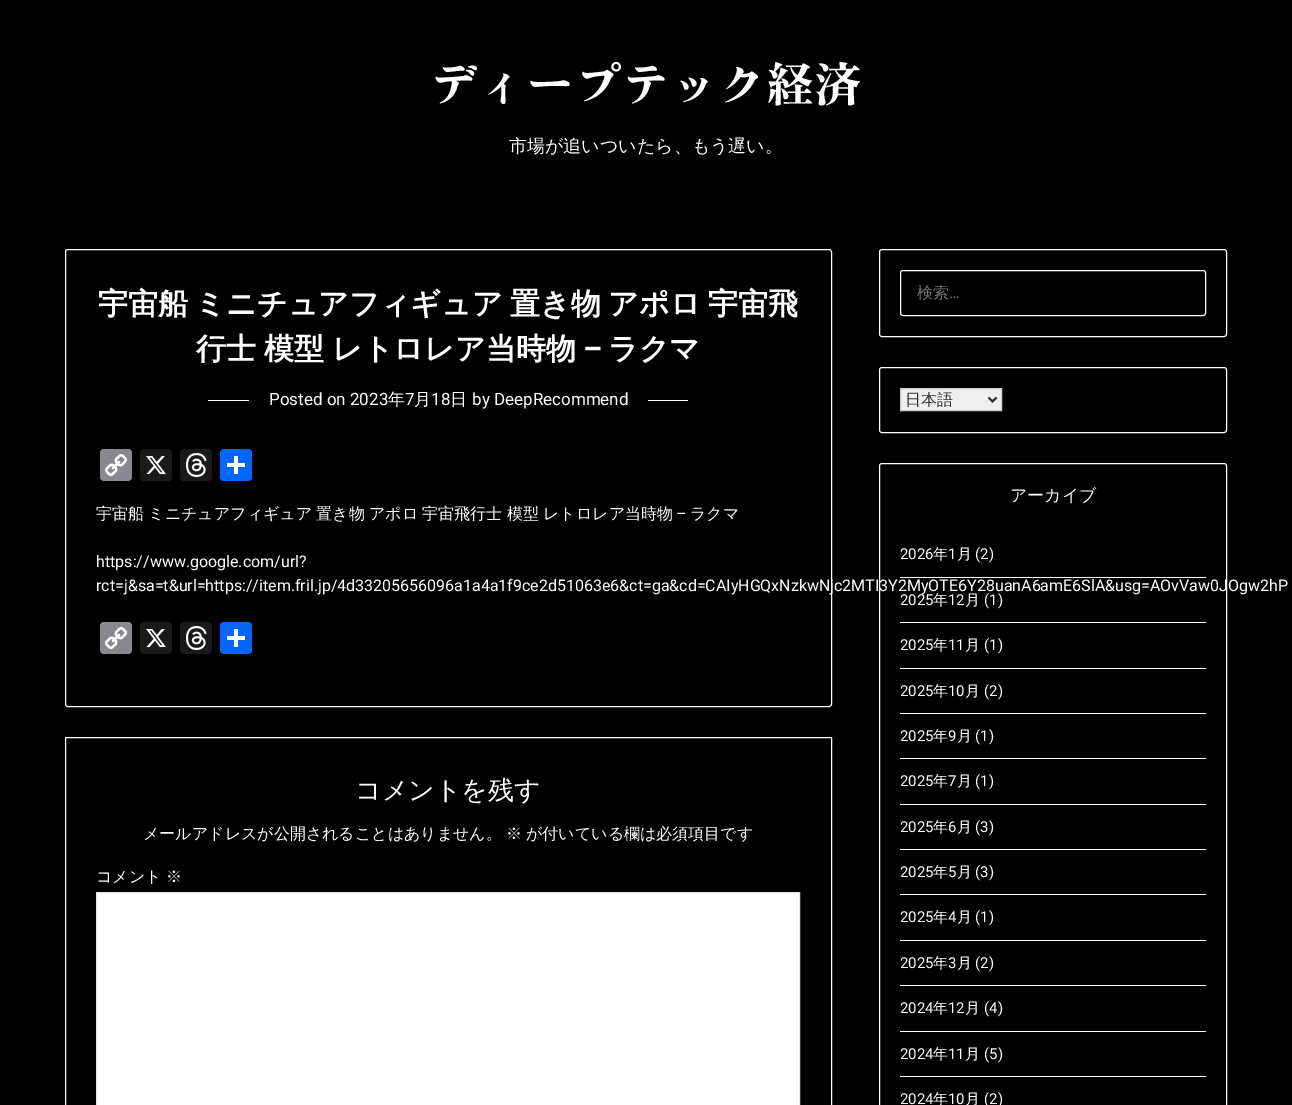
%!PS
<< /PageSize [1292 1105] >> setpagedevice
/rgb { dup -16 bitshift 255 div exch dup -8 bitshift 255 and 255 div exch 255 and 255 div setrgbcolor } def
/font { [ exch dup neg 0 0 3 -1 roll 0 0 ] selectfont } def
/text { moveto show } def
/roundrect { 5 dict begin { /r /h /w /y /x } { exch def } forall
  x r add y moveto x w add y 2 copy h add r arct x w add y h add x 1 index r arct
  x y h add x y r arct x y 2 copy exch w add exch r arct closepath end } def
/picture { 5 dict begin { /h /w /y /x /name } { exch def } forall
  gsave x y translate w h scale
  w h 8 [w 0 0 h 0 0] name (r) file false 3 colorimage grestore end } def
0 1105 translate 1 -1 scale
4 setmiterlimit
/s1 { /ZenAntique-Regular 48 font 16#FFFFFF rgb } def
/s2 { /WenQuanYiZenHei-Medium 18 font 16#FFFFFF rgb } def
/s3 { /WenQuanYiZenHei-Medium 16 font 16#757575 rgb } def
/s4 { /Roboto-Regular 16 font 16#757575 rgb } def
/s5 { /WenQuanYiZenHei-Medium 16 font 16#333333 rgb } def
/s6 { /WenQuanYiZenHei-Medium 17 font 16#FFFFFF rgb } def
/s7 { /Roboto-Regular 15 font 16#FFFFFF rgb } def
/s8 { /WenQuanYiZenHei-Medium 15 font 16#FFFFFF rgb } def
/s9 { /WenQuanYiZenHei-Bold 30 font 16#FFFFFF rgb } def
/s10 { /Roboto-Bold 30 font 16#FFFFFF rgb } def
/s11 { /Roboto-Regular 17 font 16#FFFFFF rgb } def
/s12 { /Roboto-Regular 16 font 16#FFFFFF rgb } def
/s13 { /WenQuanYiZenHei-Medium 16 font 16#FFFFFF rgb } def
/s14 { /WenQuanYiZenHei-Medium 26 font 16#FFFFFF rgb } def
16#000000 rgb
0 0 1292 1105 rectfill
s1
(ディープテック経済) 430 102 text
s2
(市場が追いついたら、もう遅い。) 509 152 text
879.5 249.5 347 87 2.5 roundrect stroke
900.5 270.5 305 45 2.5 roundrect stroke
s3
(検索) 917 298 text
s4
(…) 949 298 text
16#FFFFFF rgb
879.5 367.5 347 65 2.5 roundrect stroke
16#EFEFEF rgb
900.5 388.5 moveto 1001.5 388.5 lineto 1001.5 410.5 lineto 900.5 410.5 lineto closepath gsave fill grestore
16#CCCCCC rgb
stroke
16#333333 rgb
2 setlinewidth
988.5 397.5 moveto 992.5 401.5 lineto 996.5 397.5 lineto stroke
s5
(日本語) 905 405 text
16#FFFFFF rgb
1 setlinewidth
879.5 463.5 347 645 2.5 roundrect stroke
s6
(アーカイブ) 1010 501 text
900 577 306 1 rectfill
s7
(2026) 900 559 text
s8
(年) 933 559 text
s7
(1) 948 559 text
s8
(月) 957 559 text
s7
(\(2\)) 975 559 text
900 622 306 1 rectfill
(2025) 900 605 text
s8
(年) 933 605 text
s7
(12) 948 605 text
s8
(月) 965 605 text
s7
(\(1\)) 984 605 text
900 668 306 1 rectfill
(2025) 900 650 text
s8
(年) 933 650 text
s7
(11) 948 650 text
s8
(月) 965 650 text
s7
(\(1\)) 984 650 text
900 713 306 1 rectfill
(2025) 900 696 text
s8
(年) 933 696 text
s7
(10) 948 696 text
s8
(月) 965 696 text
s7
(\(2\)) 984 696 text
900 758 306 1 rectfill
(2025) 900 741 text
s8
(年) 933 741 text
s7
(9) 948 741 text
s8
(月) 957 741 text
s7
(\(1\)) 975 741 text
900 804 306 1 rectfill
(2025) 900 786 text
s8
(年) 933 786 text
s7
(7) 948 786 text
s8
(月) 957 786 text
s7
(\(1\)) 975 786 text
900 849 306 1 rectfill
(2025) 900 832 text
s8
(年) 933 832 text
s7
(6) 948 832 text
s8
(月) 957 832 text
s7
(\(3\)) 975 832 text
900 894 306 1 rectfill
(2025) 900 877 text
s8
(年) 933 877 text
s7
(5) 948 877 text
s8
(月) 957 877 text
s7
(\(3\)) 975 877 text
900 940 306 1 rectfill
(2025) 900 922 text
s8
(年) 933 922 text
s7
(4) 948 922 text
s8
(月) 957 922 text
s7
(\(1\)) 975 922 text
900 985 306 1 rectfill
(2025) 900 968 text
s8
(年) 933 968 text
s7
(3) 948 968 text
s8
(月) 957 968 text
s7
(\(2\)) 975 968 text
900 1031 306 1 rectfill
(2024) 900 1013 text
s8
(年) 933 1013 text
s7
(12) 948 1013 text
s8
(月) 965 1013 text
s7
(\(4\)) 984 1013 text
900 1076 306 1 rectfill
(2024) 900 1059 text
s8
(年) 933 1059 text
s7
(11) 948 1059 text
s8
(月) 965 1059 text
s7
(\(5\)) 984 1059 text
(2024) 900 1104 text
s8
(年) 933 1104 text
s7
(10) 948 1104 text
s8
(月) 965 1104 text
s7
(\(2\)) 984 1104 text
65.5 249.5 766 457 2.5 roundrect stroke
/WenQuanYiZenHei-Bold 30 font
98 314 moveto -1.5 0 32 (宇宙船 ミニチュアフィギュア 置き物 アポロ) widthshow
(宇宙飛) 708 314 text
(行) 196 359 text
226 359 moveto -1 0 32 (士 模型 レトロレア当時物) widthshow
s10
(–) 583 359 text
s9
(ラクマ) 608 359 text
208 400 480 1 rectfill
16#000000 rgb
249 400 399 1 rectfill
s11
(Posted on 2023) 269 405 text
s6
(年) 388 405 text
s11
(7) 405 405 text
s6
(月) 414 405 text
s11
(18) 431 405 text
s6
(日) 450 405 text
s11
(by DeepRecommend) 472 405 text
16#888990 rgb
100 449 32 32 4 roundrect fill
(pic1.raw) 105 454 22 22 picture
16#1A1A1A rgb
140 449 32 32 4 roundrect fill
(pic2.raw) 146 456 20 19 picture
180 449 32 32 4 roundrect fill
(pic3.raw) 186 453 21 24 picture
16#0166FF rgb
220 449 32 32 4 roundrect fill
16#FFFFFF rgb
234 456 4 18 rectfill
227 463 18 4 rectfill
/WenQuanYiZenHei-Medium 16 font
96 519 moveto -0.5 0 32 (宇宙船 ミニチュアフィギュア 置き物 アポロ 宇宙飛行士 模型 レトロレア当時物) widthshow
s12
(–) 676 519 text
s13
(ラクマ) 690 519 text
s12
(https://www.google.com/url?) 96 567 text
(rct=j&sa=t&url=https://item.fril.jp/4d33205656096a1a4a1f9ce2d51063e6&ct=ga&cd=CAIyHGQxNzkwNjc2MTI3Y2MyOTE6Y28uanA6amE6SlA&usg=AOvVaw0JOgw2hP) 96 591 text
16#888990 rgb
100 622 32 32 4 roundrect fill
(pic1.raw) 105 627 22 22 picture
16#1A1A1A rgb
140 622 32 32 4 roundrect fill
(pic2.raw) 146 629 20 19 picture
180 622 32 32 4 roundrect fill
(pic3.raw) 186 626 21 24 picture
16#0166FF rgb
220 622 32 32 4 roundrect fill
16#FFFFFF rgb
234 629 4 18 rectfill
227 636 18 4 rectfill
65.5 737.5 766 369 0.5 roundrect stroke
s14
(コメントを残す) 355 799 text
s13
(メールアドレスが公開されることはありません。) 143 839 text
(※) 506 839 text
(が付いている欄は必須項目です) 526 839 text
(コメント) 96 882 text
(※) 166 882 text
96.5 892.5 moveto 799.5 892.5 lineto 799.5 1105.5 lineto 96.5 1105.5 lineto closepath gsave fill grestore
16#E5E6E9 rgb
stroke
showpage
